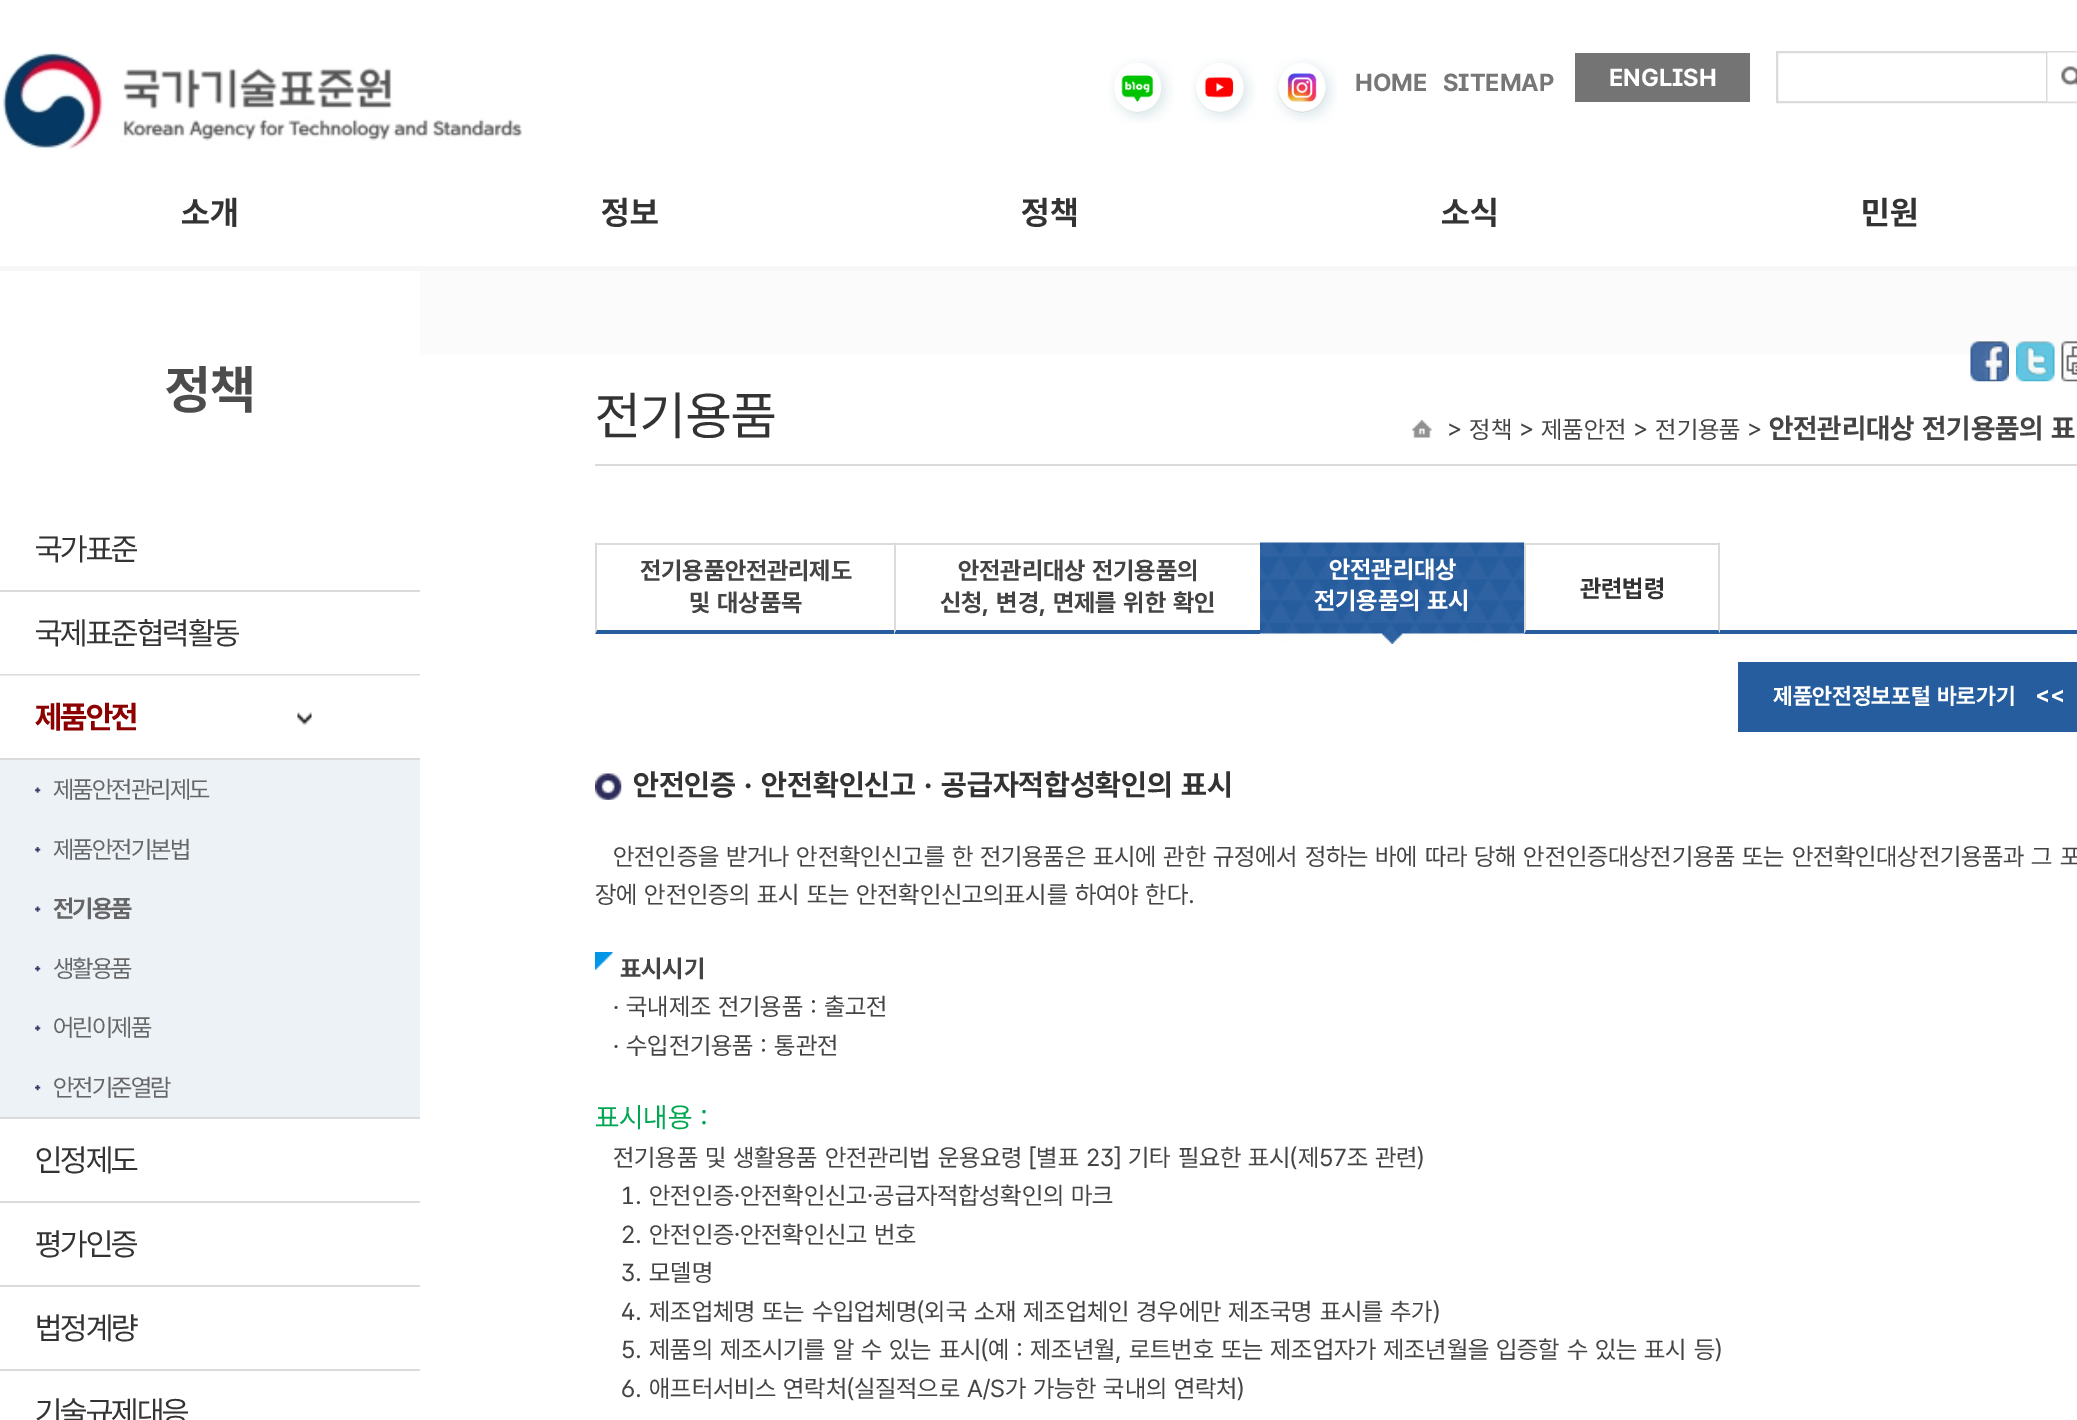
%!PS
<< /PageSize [2077 1420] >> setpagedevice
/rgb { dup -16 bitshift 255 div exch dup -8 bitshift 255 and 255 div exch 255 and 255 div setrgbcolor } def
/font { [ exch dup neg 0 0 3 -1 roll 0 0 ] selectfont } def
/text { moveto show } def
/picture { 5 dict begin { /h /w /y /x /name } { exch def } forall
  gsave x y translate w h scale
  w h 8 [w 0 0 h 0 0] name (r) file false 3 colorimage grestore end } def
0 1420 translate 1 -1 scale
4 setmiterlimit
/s1 { /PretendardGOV-Bold 24.5 font 16#777777 rgb } def
/s2 { /PretendardGOV-Bold 24.5 font 16#FFFFFF rgb } def
/s3 { /PretendardGOV-Bold 33 font 16#333333 rgb } def
/s4 { /PretendardGOV-Bold 52.5 font 16#4C4C4C rgb } def
/s5 { /PretendardGOV-Regular 52.5 font 16#333333 rgb } def
/s6 { /PretendardGOV-Regular 24.5 font 16#444444 rgb } def
/s7 { /PretendardGOV-Bold 28 font 16#444444 rgb } def
/s8 { /PretendardGOV-Bold 24.5 font 16#444444 rgb } def
/s9 { /PretendardGOV-Bold 24.5 font 16#333333 rgb } def
/s10 { /PretendardGOV-Bold 22.75 font 16#FFFFFF rgb } def
/s11 { /PretendardGOV-Bold 29.75 font 16#333333 rgb } def
/s12 { /PretendardGOV-Regular 28 font 16#00A651 rgb } def
16#FFFFFF rgb
0 0 2077 1420 rectfill
(pic1.raw) 2 52 520 98 picture
(pic2.raw) 1109 58 65 65 picture
(pic3.raw) 1191 58 65 66 picture
(pic4.raw) 1273 58 64 66 picture
s1
(HOME) 1355 91 text
(SITEMAP) 1443 91 text
16#747474 rgb
1575 53 175 49 rectfill
s2
(ENGLISH) 1609 86 text
16#DBDBDB rgb
2 setlinewidth
1777 52 270 50 rectstroke
(pic5.raw) 2047 51 30 53 picture
s3
(소개) 181 224 text
(정보) 601 224 text
(정책) 1021 224 text
(소식) 1441 224 text
(민원) 1861 224 text
gsave 420 271 moveto 2077 271 lineto 2077 355 lineto 420 355 lineto closepath clip newpath
<< /ShadingType 2 /ColorSpace /DeviceRGB /Coords [1039 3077 1039 271] /Extend [true true] /Function << /FunctionType 3 /Domain [0 1] /Functions [<< /FunctionType 2 /Domain [0 1] /C0 [1 1 1] /C1 [1 1 1] /N 1 >> << /FunctionType 2 /Domain [0 1] /C0 [1 1 1] /C1 [0.984 0.984 0.984] /N 1 >>] /Bounds [0.92] /Encode [0 1 0 1] >> >> shfill grestore
16#F7F7F7 rgb
0 266 2077 5 rectfill
s4
(정책) 165 408 text
16#DBDBDB rgb
0 590 420 2 rectfill
/PretendardGOV-Regular 31.5 font
16#333333 rgb
35 560 moveto -1.75 0 (국가표준) ashow
16#DBDBDB rgb
0 674 420 2 rectfill
16#333333 rgb
35 644 moveto -1.75 0 (국제표준협력활동) ashow
(pic6.raw) 0 675 420 83 picture
16#DBDBDB rgb
0 758 420 2 rectfill
/PretendardGOV-Bold 31.5 font
16#8D0000 rgb
35 728 moveto -1.75 0 (제품안전) ashow
16#DBDBDB rgb
0 1117 420 2 rectfill
16#EDF2F7 rgb
0 760 420 357 rectfill
(pic7.raw) 35 787 6 6 picture
/PretendardGOV-Regular 24.5 font
16#666666 rgb
53 798 moveto -1.75 0 (제품안전관리제도) ashow
(pic8.raw) 35 847 6 6 picture
53 858 moveto -1.75 0 (제품안전기본법) ashow
(pic7.raw) 35 906 6 6 picture
/PretendardGOV-Bold 24.5 font
53 917 moveto -1.75 0 (전기용품) ashow
(pic8.raw) 35 966 6 6 picture
/PretendardGOV-Regular 24.5 font
53 977 moveto -1.75 0 (생활용품) ashow
(pic7.raw) 35 1025 6 6 picture
53 1036 moveto -1.75 0 (어린이제품) ashow
(pic8.raw) 35 1085 6 6 picture
53 1096 moveto -1.75 0 (안전기준열람) ashow
16#DBDBDB rgb
0 1201 420 2 rectfill
/PretendardGOV-Regular 31.5 font
16#333333 rgb
35 1171 moveto -1.75 0 (인정제도) ashow
16#DBDBDB rgb
0 1285 420 2 rectfill
16#333333 rgb
35 1255 moveto -1.75 0 (평가인증) ashow
16#DBDBDB rgb
0 1369 420 2 rectfill
16#333333 rgb
35 1339 moveto -1.75 0 (법정계량) ashow
35 1423 moveto -1.75 0 (기술규제대응) ashow
16#DBDBDB rgb
595 464 1482 2 rectfill
(pic9.raw) 1970 341 39 41 picture
(pic10.raw) 2016 341 39 41 picture
(pic11.raw) 2061 341 16 41 picture
s5
(전기용품) 595 434 text
(pic12.raw) 1412 420 20 18 picture
s6
(> 정책 > 제품안전 > 전기용품 >) 1447 438 text
s7
(안전관리대상 전기용품의 표) 1769 438 text
16#265D9E rgb
1524 630 553 4 rectfill
16#DBDBDB rgb
595 543 665 2 rectfill
16#265D9E rgb
894 634 moveto 595 634 lineto 597 630 lineto 894 630 lineto closepath fill
16#DBDBDB rgb
595 634 moveto 595 542 lineto 597 544 lineto 597 630 lineto closepath fill
s8
(전기용품안전관리제도) 640 579 text
(및 대상품목) 689 611 text
16#265D9E rgb
1260 634 moveto 894 634 lineto 896 630 lineto 1260 630 lineto closepath fill
16#DBDBDB rgb
894 634 moveto 894 542 lineto 896 544 lineto 896 630 lineto closepath fill
s8
(안전관리대상 전기용품의) 958 579 text
(신청, 변경, 면제를 위한 확인) 940 611 text
(pic13.raw) 1260 542 265 102 picture
s2
(안전관리대상) 1329 578 text
(전기용품의 표시) 1314 609 text
16#DBDBDB rgb
1524 543 196 2 rectfill
1720 542 moveto 1720 634 lineto 1718 630 lineto 1718 544 lineto closepath fill
16#265D9E rgb
1720 634 moveto 1524 634 lineto 1526 630 lineto 1718 630 lineto closepath fill
16#DBDBDB rgb
1524 634 moveto 1524 542 lineto 1526 544 lineto 1526 630 lineto closepath fill
s9
(관련법령) 1580 597 text
16#265D9E rgb
1738 662 339 70 rectfill
s10
(제품안전정보포털 바로가기   <<) 1773 704 text
(pic14.raw) 595 773 27 27 picture
s11
(안전인증 · 안전확인신고 · 공급자적합성확인의 표시) 633 795 text
s6
(안전인증을 받거나 안전확인신고를 한 전기용품은 표시에 관한 규정에서 정하는 바에 따라 당해 안전인증대상전기용품 또는 안전확인대상전기용품과 그 포) 613 865 text
(장에 안전인증의 표시 또는 안전확인신고의표시를 하여야 한다.) 595 903 text
(pic15.raw) 595 952 18 18 picture
s8
(표시시기) 620 977 text
s6
(· 국내제조 전기용품 : 출고전) 613 1015 text
(· 수입전기용품 : 통관전) 613 1054 text
s12
(표시내용 :) 595 1127 text
s6
(전기용품 및 생활용품 안전관리법 운용요령 [별표 23] 기타 필요한 표시\(제57조 관련\)) 613 1166 text
(1. 안전인증․안전확인신고․공급자적합성확인의 마크) 621 1204 text
(2. 안전인증․안전확인신고 번호) 621 1243 text
(3. 모델명) 621 1281 text
(4. 제조업체명 또는 수입업체명\(외국 소재 제조업체인 경우에만 제조국명 표시를 추가\)) 621 1320 text
(5. 제품의 제조시기를 알 수 있는 표시\(예 : 제조년월, 로트번호 또는 제조업자가 제조년월을 입증할 수 있는 표시 등\)) 621 1358 text
(6. 애프터서비스 연락처\(실질적으로 A/S가 가능한 국내의 연락처\)) 621 1397 text
showpage
